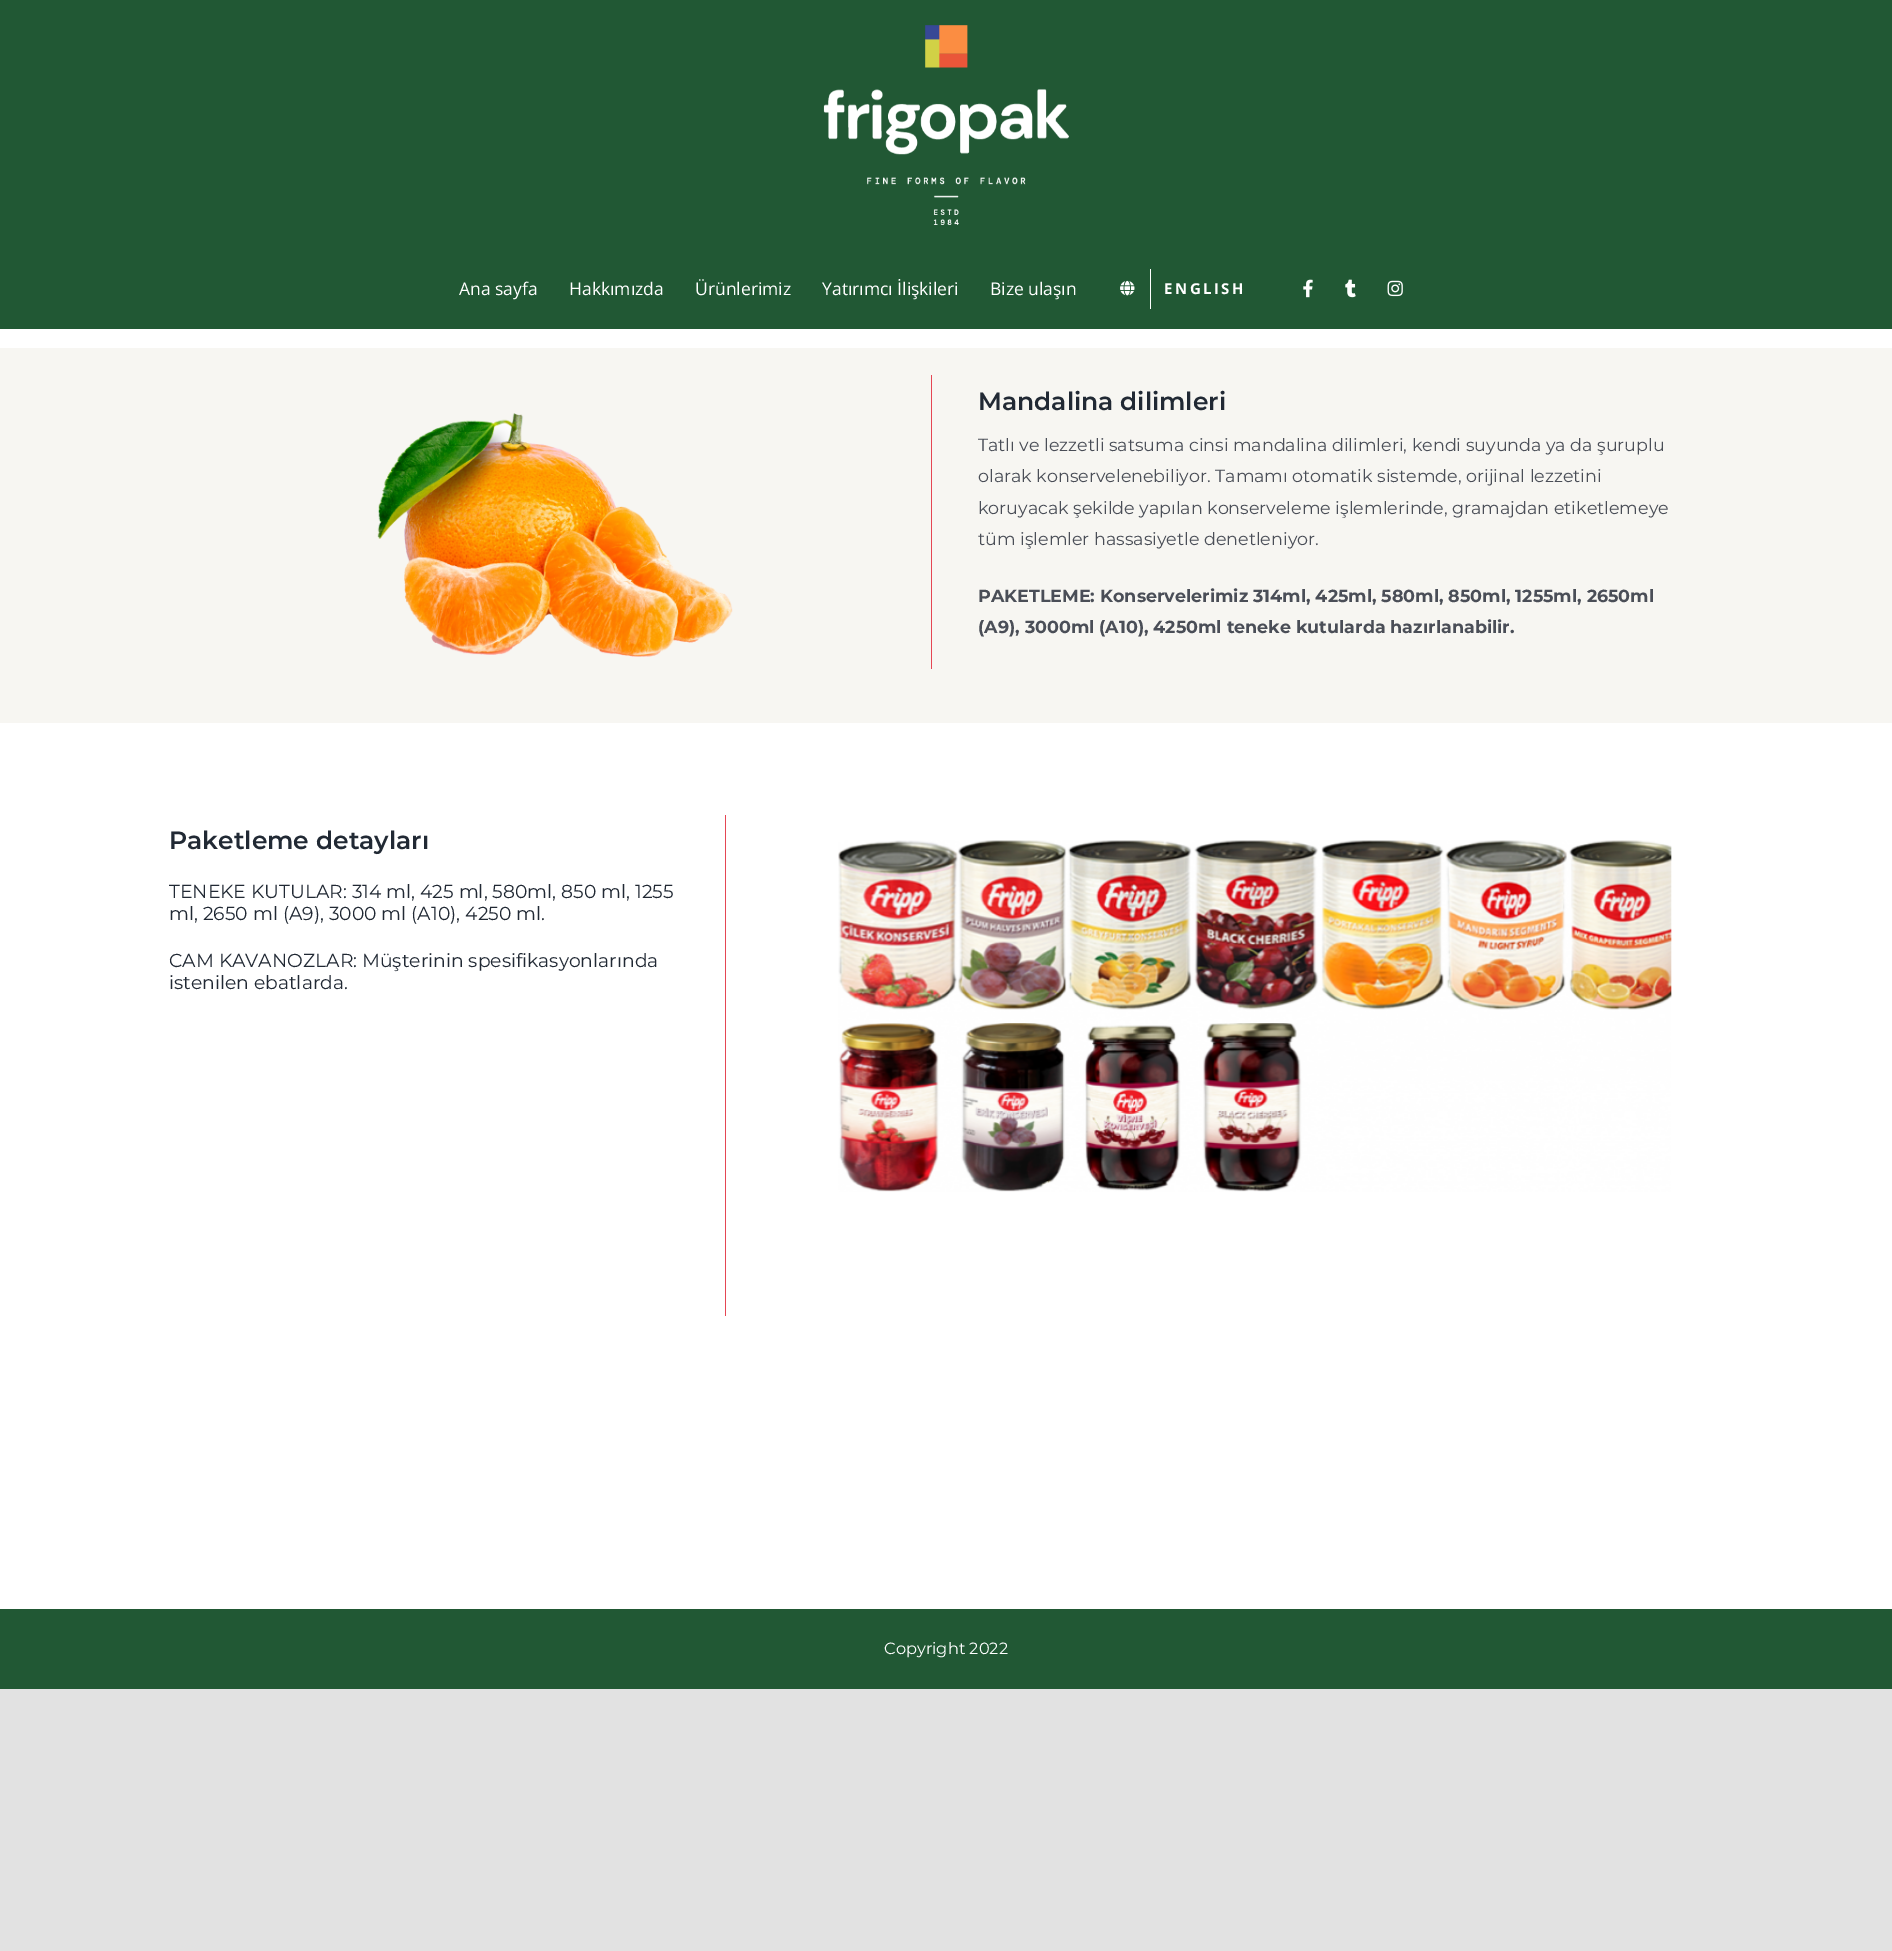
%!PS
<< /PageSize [1892 1951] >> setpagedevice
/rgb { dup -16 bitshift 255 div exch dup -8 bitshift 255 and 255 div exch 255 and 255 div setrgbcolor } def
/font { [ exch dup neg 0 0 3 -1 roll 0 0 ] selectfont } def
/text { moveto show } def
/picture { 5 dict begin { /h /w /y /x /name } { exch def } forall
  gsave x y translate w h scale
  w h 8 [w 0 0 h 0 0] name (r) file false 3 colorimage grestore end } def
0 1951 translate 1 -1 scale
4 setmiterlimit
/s1 { /OpenSans-Regular 17.5 font 16#FFFFFF rgb } def
/s2 { /Montserrat-SemiBold 25 font 16#212934 rgb } def
/s3 { /Montserrat-Regular 17.5 font 16#4A4E57 rgb } def
/s4 { /Montserrat-Bold 17.5 font 16#4A4E57 rgb } def
/s5 { /Montserrat-Regular 18.75 font 16#212934 rgb } def
/s6 { /Montserrat-Regular 16.25 font 16#FFFFFF rgb } def
16#E2E2E2 rgb
0 0 1892 1951 rectfill
16#FFFFFF rgb
0 329 1892 1280 rectfill
16#215834 rgb
0 0 1892 329 rectfill
(pic1.raw) 823 25 246 200 picture
s1
(Ana sayfa) 459 295 text
(Hakkımızda) 569 295 text
(Ürünlerimiz) 695 295 text
(Yatırımcı İlişkileri) 822 295 text
(Bize ulaşın) 990 295 text
1150 269 1 40 rectfill
(pic2.raw) 1120 280 15 16 picture
/OpenSans-Bold 15 font
1164 294 moveto 2.5 0 (ENGLISH) ashow
(pic3.raw) 1303 279 10 19 picture
(pic4.raw) 1345 279 11 19 picture
(pic5.raw) 1387 280 16 17 picture
16#F7F6F2 rgb
0 348 1892 375 rectfill
(pic6.raw) 377 413 356 244 picture
16#E54654 rgb
931 375 1 294 rectfill
s2
(Mandalina dilimleri) 978 410 text
s3
(Tatlı ve lezzetli satsuma cinsi mandalina dilimleri, kendi suyunda ya da şuruplu) 978 451 text
(olarak konservelenebiliyor. Tamamı otomatik sistemde, orijinal lezzetini) 978 482 text
(koruyacak şekilde yapılan konserveleme işlemlerinde, gramajdan etiketlemeye) 978 514 text
(tüm işlemler hassasiyetle denetleniyor.) 978 545 text
s4
(PAKETLEME: Konservelerimiz 314ml, 425ml, 580ml, 850ml, 1255ml, 2650ml) 978 602 text
(\(A9\), 3000ml \(A10\), 4250ml teneke kutularda hazırlanabilir.) 978 633 text
s2
(Paketleme detayları) 169 849 text
s5
(TENEKE KUTULAR: 314 ml, 425 ml, 580ml, 850 ml, 1255) 169 898 text
(ml, 2650 ml \(A9\), 3000 ml \(A10\), 4250 ml.) 169 920 text
(CAM KAVANOZLAR: Müşterinin spesifikasyonlarında) 169 967 text
(istenilen ebatlarda.) 169 989 text
16#E54654 rgb
725 815 1 501 rectfill
(pic7.raw) 838 840 834 352 picture
16#215834 rgb
0 1609 1892 80 rectfill
s6
(Copyright 2022) 884 1654 text
showpage
